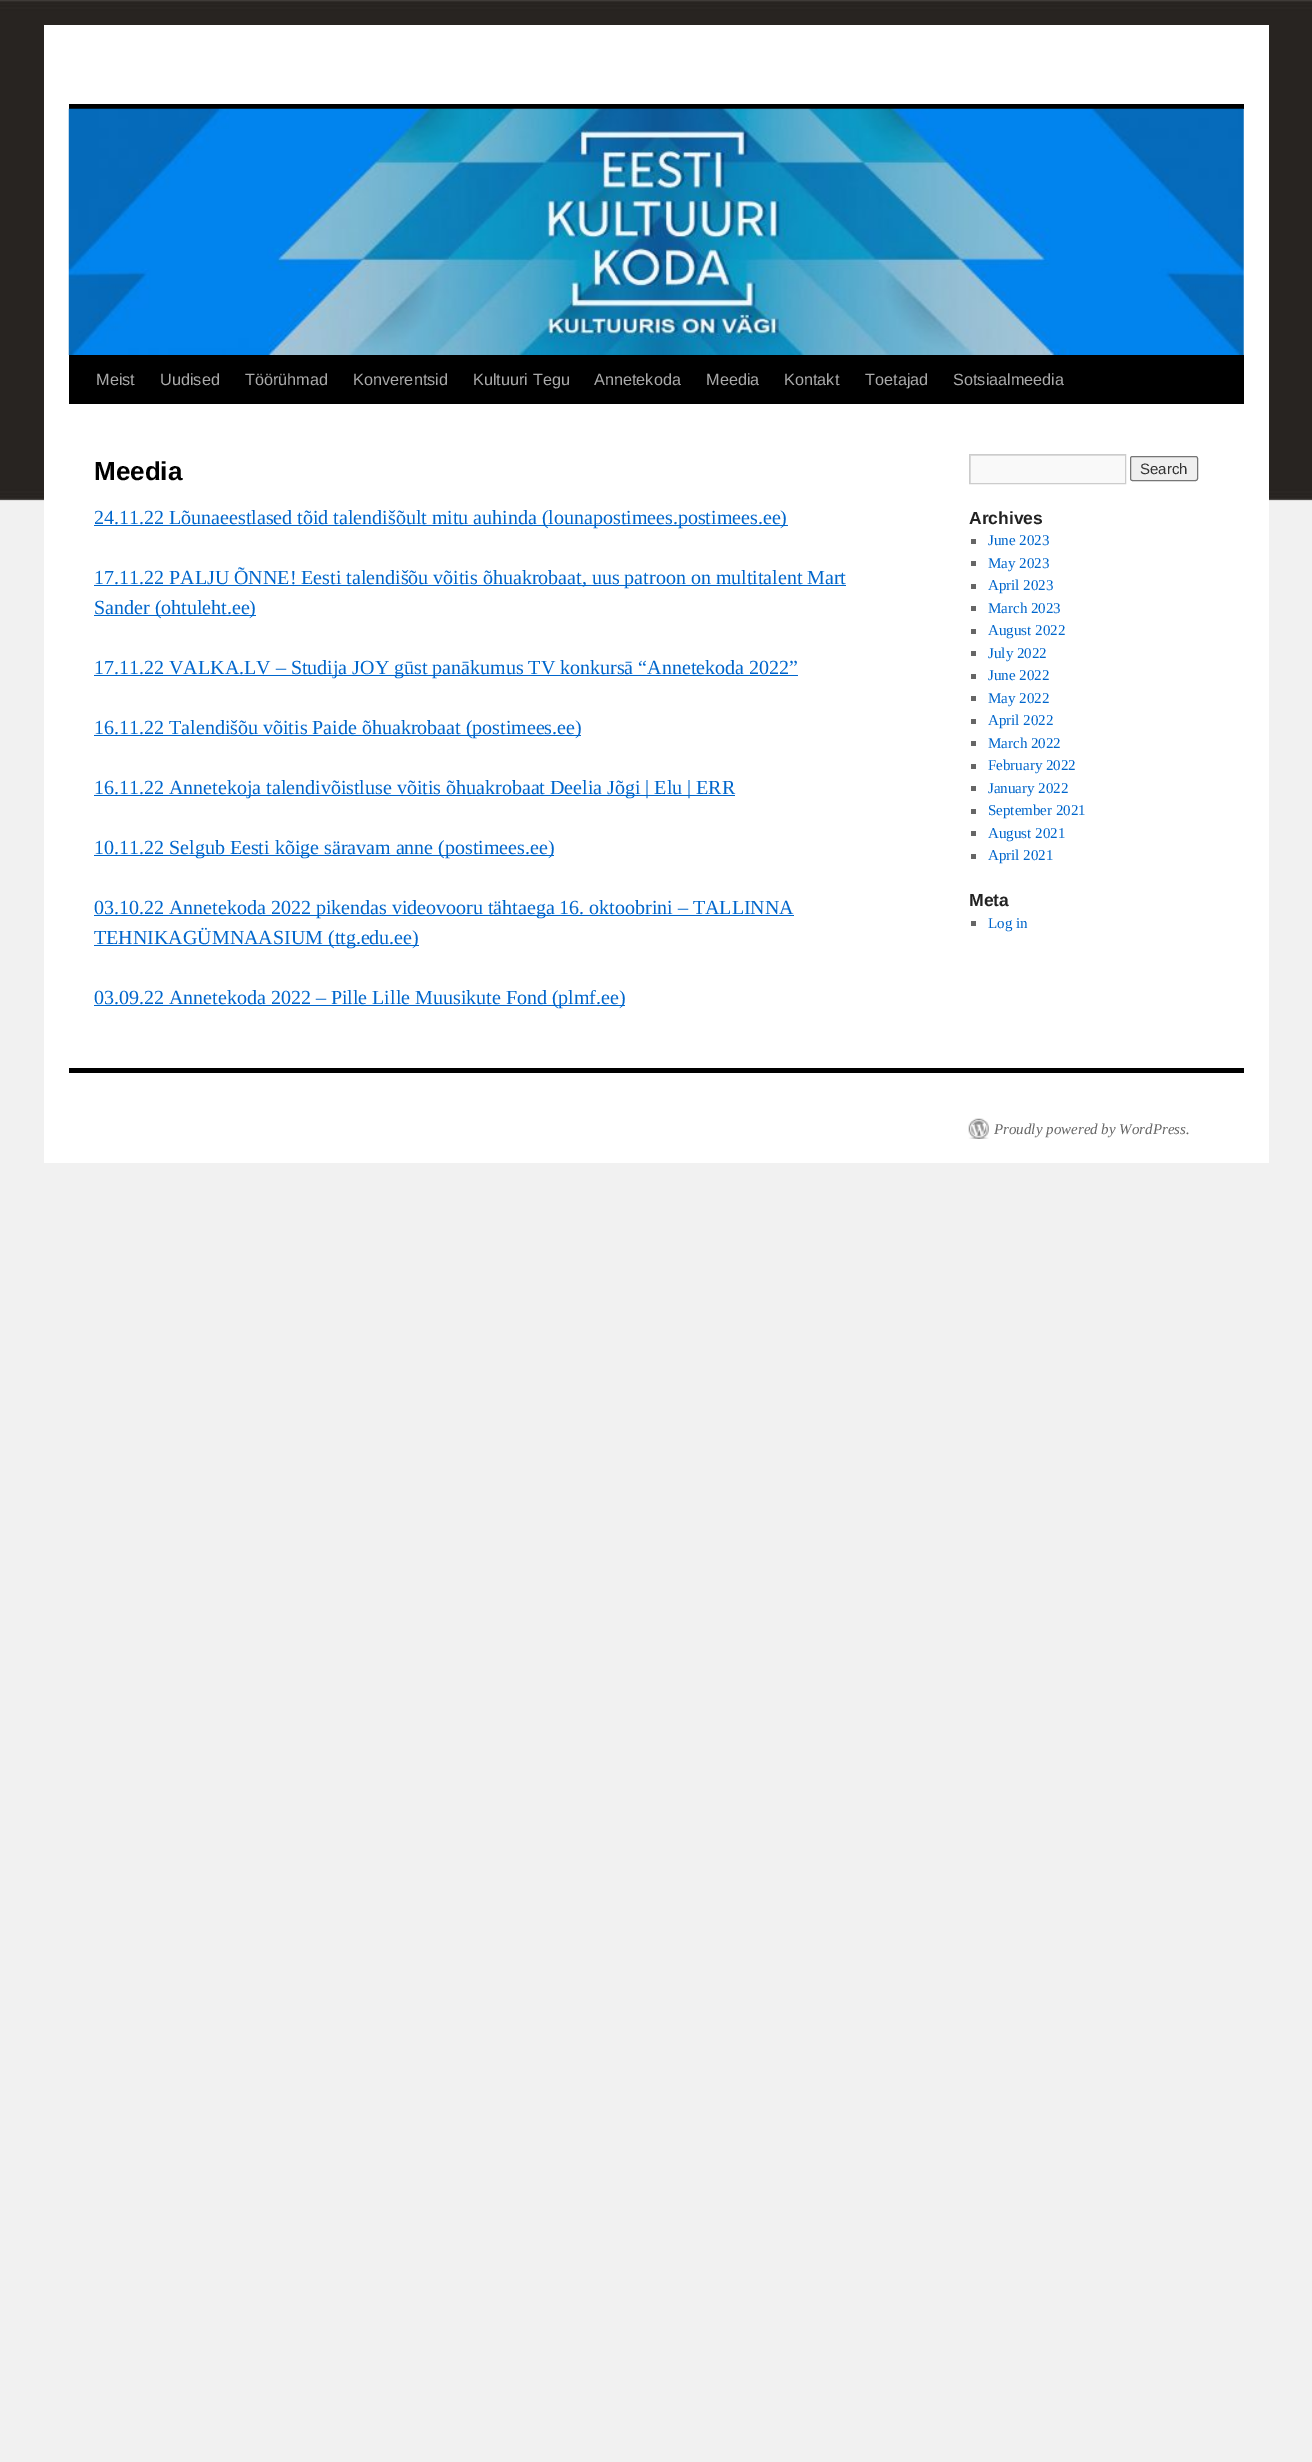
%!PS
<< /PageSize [1312 2462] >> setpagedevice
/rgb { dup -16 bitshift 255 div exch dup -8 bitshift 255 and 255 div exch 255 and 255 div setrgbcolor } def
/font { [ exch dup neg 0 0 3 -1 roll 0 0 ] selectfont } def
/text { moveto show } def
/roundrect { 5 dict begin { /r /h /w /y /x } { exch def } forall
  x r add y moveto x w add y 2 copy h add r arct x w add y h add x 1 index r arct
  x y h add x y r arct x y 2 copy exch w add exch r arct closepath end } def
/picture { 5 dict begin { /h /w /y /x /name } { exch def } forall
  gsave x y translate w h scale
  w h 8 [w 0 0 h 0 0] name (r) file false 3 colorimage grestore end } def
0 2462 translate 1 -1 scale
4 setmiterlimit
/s1 { /LiberationSans-Regular 16.25 font 16#AAAAAA rgb } def
/s2 { /LiberationSans-Bold 26 font 16#000000 rgb } def
/s3 { /LiberationSerif-Regular 20 font 16#0066CC rgb } def
/s4 { /LiberationSans-Regular 15 font 16#333333 rgb } def
/s5 { /LiberationSans-Bold 17.5 font 16#222222 rgb } def
/s6 { /LiberationSerif-Regular 15 font 16#0066CC rgb } def
/s7 { /LiberationSerif-Italic 15 font 16#666666 rgb } def
16#F1F1F1 rgb
0 0 1312 2462 rectfill
(pic1.raw) 0 0 1312 501 picture
16#FFFFFF rgb
44 25 1225 1138 rectfill
16#000000 rgb
69 104 1175 5 rectfill
69 355 1175 49 rectfill
(pic2.raw) 68 108 1176 247 picture
s1
(Meist) 96 385 text
(Uudised) 160 385 text
(Töörühmad) 245 385 text
(Konverentsid) 353 385 text
(Kultuuri Tegu) 473 385 text
(Annetekoda) 594 385 text
(Meedia) 706 385 text
(Kontakt) 784 385 text
(Toetajad) 865 385 text
(Sotsiaalmeedia) 953 385 text
s2
(Meedia) 94 480 text
16#0066CC rgb
94 525 694 1 rectfill
s3
(24.11.22 Lõunaeestlased tõid talendišõult mitu auhinda \(lounapostimees.postimees.ee\)) 94 524 text
94 585 752 1 rectfill
(17.11.22 PALJU ÕNNE! Eesti talendišõu võitis õhuakrobaat, uus patroon on multitalent Mart) 94 584 text
94 615 162 1 rectfill
(Sander \(ohtuleht.ee\)) 94 614 text
94 675 704 1 rectfill
(17.11.22 VALKA.LV – Studija JOY gūst panākumus TV konkursā “Annetekoda 2022”) 94 674 text
94 735 487 1 rectfill
(16.11.22 Talendišõu võitis Paide õhuakrobaat \(postimees.ee\)) 94 734 text
94 795 641 1 rectfill
(16.11.22 Annetekoja talendivõistluse võitis õhuakrobaat Deelia Jõgi | Elu | ERR) 94 794 text
94 855 460 1 rectfill
(10.11.22 Selgub Eesti kõige säravam anne \(postimees.ee\)) 94 854 text
94 915 700 1 rectfill
(03.10.22 Annetekoda 2022 pikendas videovooru tähtaega 16. oktoobrini – TALLINNA) 94 914 text
94 945 325 1 rectfill
(TEHNIKAGÜMNAASIUM \(ttg.edu.ee\)) 94 944 text
94 1005 531 1 rectfill
(03.09.22 Annetekoda 2022 – Pille Lille Muusikute Fond \(plmf.ee\)) 94 1004 text
16#F9F9F9 rgb
971 456 154 27 rectfill
gsave
970 455 155 28 rectclip
16#E0E0E0 rgb
846 331 moveto 1249 331 lineto 1249 606 lineto 846 606 lineto closepath 971 456 moveto 1126 456 lineto 1126 484 lineto 971 484 lineto closepath eofill
grestore
16#CCCCCC rgb
969.5 454.5 156 29 rectstroke
16#EFEFEF rgb
1130.5 456.5 67 24 2 roundrect gsave fill grestore
16#767676 rgb
stroke
s4
(Search) 1140 474 text
s5
(Archives) 969 524 text
16#666666 rgb
971 539 5 5 rectfill
s6
(June 2023) 988 545 text
16#666666 rgb
971 561 5 5 rectfill
s6
(May 2023) 988 568 text
16#666666 rgb
971 584 5 5 rectfill
s6
(April 2023) 988 590 text
16#666666 rgb
971 606 5 5 rectfill
s6
(March 2023) 988 613 text
16#666666 rgb
971 629 5 5 rectfill
s6
(August 2022) 988 635 text
16#666666 rgb
971 651 5 5 rectfill
s6
(July 2022) 988 658 text
16#666666 rgb
971 674 5 5 rectfill
s6
(June 2022) 988 680 text
16#666666 rgb
971 696 5 5 rectfill
s6
(May 2022) 988 703 text
16#666666 rgb
971 719 5 5 rectfill
s6
(April 2022) 988 725 text
16#666666 rgb
971 741 5 5 rectfill
s6
(March 2022) 988 748 text
16#666666 rgb
971 764 5 5 rectfill
s6
(February 2022) 988 770 text
16#666666 rgb
971 786 5 5 rectfill
s6
(January 2022) 988 793 text
16#666666 rgb
971 809 5 5 rectfill
s6
(September 2021) 988 815 text
16#666666 rgb
971 831 5 5 rectfill
s6
(August 2021) 988 838 text
16#666666 rgb
971 854 5 5 rectfill
s6
(April 2021) 988 860 text
s5
(Meta) 969 906 text
16#666666 rgb
971 921 5 5 rectfill
s6
(Log in) 988 928 text
16#000000 rgb
69 1068 1175 5 rectfill
(pic3.raw) 968 1118 21 21 picture
s7
(Proudly powered by WordPress.) 994 1134 text
showpage
